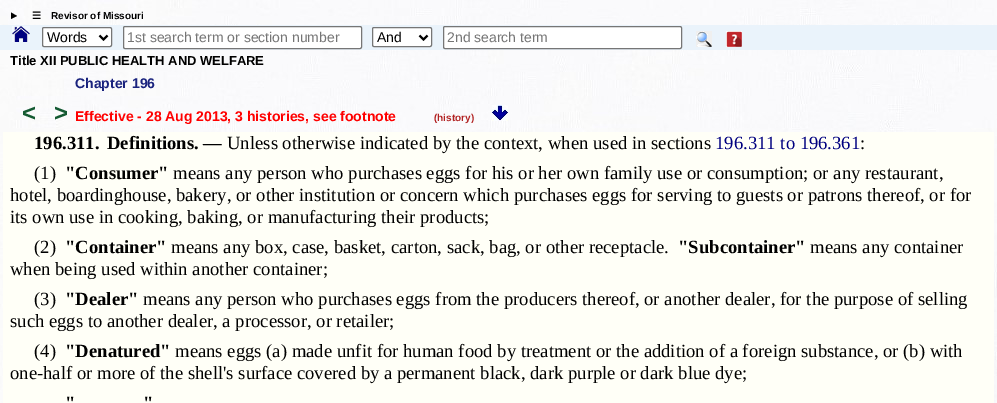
%!PS
<< /PageSize [997 403] >> setpagedevice
/rgb { dup -16 bitshift 255 div exch dup -8 bitshift 255 and 255 div exch 255 and 255 div setrgbcolor } def
/font { [ exch dup neg 0 0 3 -1 roll 0 0 ] selectfont } def
/text { moveto show } def
/roundrect { 5 dict begin { /r /h /w /y /x } { exch def } forall
  x r add y moveto x w add y 2 copy h add r arct x w add y h add x 1 index r arct
  x y h add x y r arct x y 2 copy exch w add exch r arct closepath end } def
/picture { 5 dict begin { /h /w /y /x /name } { exch def } forall
  gsave x y translate w h scale
  w h 8 [w 0 0 h 0 0] name (r) file false 3 colorimage grestore end } def
0 403 translate 1 -1 scale
4 setmiterlimit
/s1 { /DejaVuSans-Bold 10 font 16#000000 rgb } def
/s2 { /LiberationSans-Bold 10 font 16#000000 rgb } def
/s3 { /LiberationSans-Regular 14 font 16#000000 rgb } def
/s4 { /LiberationSans-Regular 14 font 16#757575 rgb } def
/s5 { /LiberationSans-Bold 13 font 16#000000 rgb } def
/s6 { /LiberationSans-Bold 14 font 16#1A237E rgb } def
/s7 { /LiberationSans-Bold 24 font 16#145A32 rgb } def
/s8 { /LiberationSans-Bold 14 font 16#FF0000 rgb } def
/s9 { /LiberationSans-Bold 10 font 16#B22222 rgb } def
/s10 { /LiberationSerif-Bold 18.67 font 16#000000 rgb } def
/s11 { /LiberationSerif-Regular 18.67 font 16#000000 rgb } def
/s12 { /LiberationSerif-Regular 18.67 font 16#000080 rgb } def
16#FFFFFF rgb
0 0 997 403 rectfill
(pic1.raw) 0 0 997 403 picture
16#000000 rgb
11 12.5 moveto 17 16 lineto 11 19 lineto closepath fill
s1
(☰) 32 19 text
s2
(Revisor of Missouri) 51 19 text
16#EAF3FB rgb
0 25 997 25 rectfill
(pic2.raw) 12 26 18 16 picture
16#FFFFFF rgb
42.5 27.5 69 19 1.5 roundrect gsave fill grestore
16#767676 rgb
stroke
16#000000 rgb
2 setlinewidth
99.5 35.5 moveto 103.5 39.5 lineto 107.5 35.5 lineto stroke
s3
(Words) 47 42 text
16#FFFFFF rgb
123.5 26.5 238 22 1.5 roundrect gsave fill grestore
16#767676 rgb
1 setlinewidth
stroke
s4
(1st search term or section number) 127 42 text
16#FFFFFF rgb
372.5 27.5 59 19 1.5 roundrect gsave fill grestore
16#767676 rgb
stroke
16#000000 rgb
2 setlinewidth
419.5 35.5 moveto 423.5 39.5 lineto 427.5 35.5 lineto stroke
(And) 377 42 text
16#FFFFFF rgb
443.5 26.5 238 22 1.5 roundrect gsave fill grestore
16#767676 rgb
1 setlinewidth
stroke
s4
(2nd search term) 447 42 text
(pic3.raw) 696 31 16 16 picture
(pic4.raw) 726 31 16 16 picture
s5
(Title XII PUBLIC HEALTH AND WELFARE) 10 65 text
s6
(Chapter 196) 75 88 text
s7
(<) 22 121 text
(>) 54 121 text
s8
(Effective - 28 Aug 2013, 3 histories, see footnote) 75 121 text
s9
(\(history\)) 434 121 text
(pic5.raw) 492 105 16 16 picture
16#FFFFF7 rgb
3 132 991 271 rectfill
s10
(196.311.) 34 149 text
(Definitions. —) 107 149 text
s11
(Unless otherwise indicated by the context, when used in sections) 227 149 text
s12
(196.311 to 196.361) 715 149 text
s11
(:) 860 149 text
(\(1\)) 34 179 text
s10
("Consumer") 65 179 text
s11
(means any person who purchases eggs for his or her own family use or consumption; or any restaurant,) 173 179 text
(hotel, boardinghouse, bakery, or other institution or concern which purchases eggs for serving to guests or patrons thereof, or for) 10 201 text
(its own use in cooking, baking, or manufacturing their products;) 10 223 text
(\(2\)) 34 253 text
s10
("Container") 65 253 text
s11
(means any box, case, basket, carton, sack, bag, or other receptacle.) 171 253 text
s10
("Subcontainer") 678 253 text
s11
(means any container) 810 253 text
(when being used within another container;) 10 275 text
(\(3\)) 34 305 text
s10
("Dealer") 65 305 text
s11
(means any person who purchases eggs from the producers thereof, or another dealer, for the purpose of selling) 143 305 text
(such eggs to another dealer, a processor, or retailer;) 10 327 text
(\(4\)) 34 357 text
s10
("Denatured") 65 357 text
s11
(means eggs \(a\) made unfit for human food by treatment or the addition of a foreign substance, or \(b\) with) 175 357 text
(one-half or more of the shell's surface covered by a permanent black, dark purple or dark blue dye;) 10 379 text
s10
(") 65 409 text
(") 143 409 text
showpage
